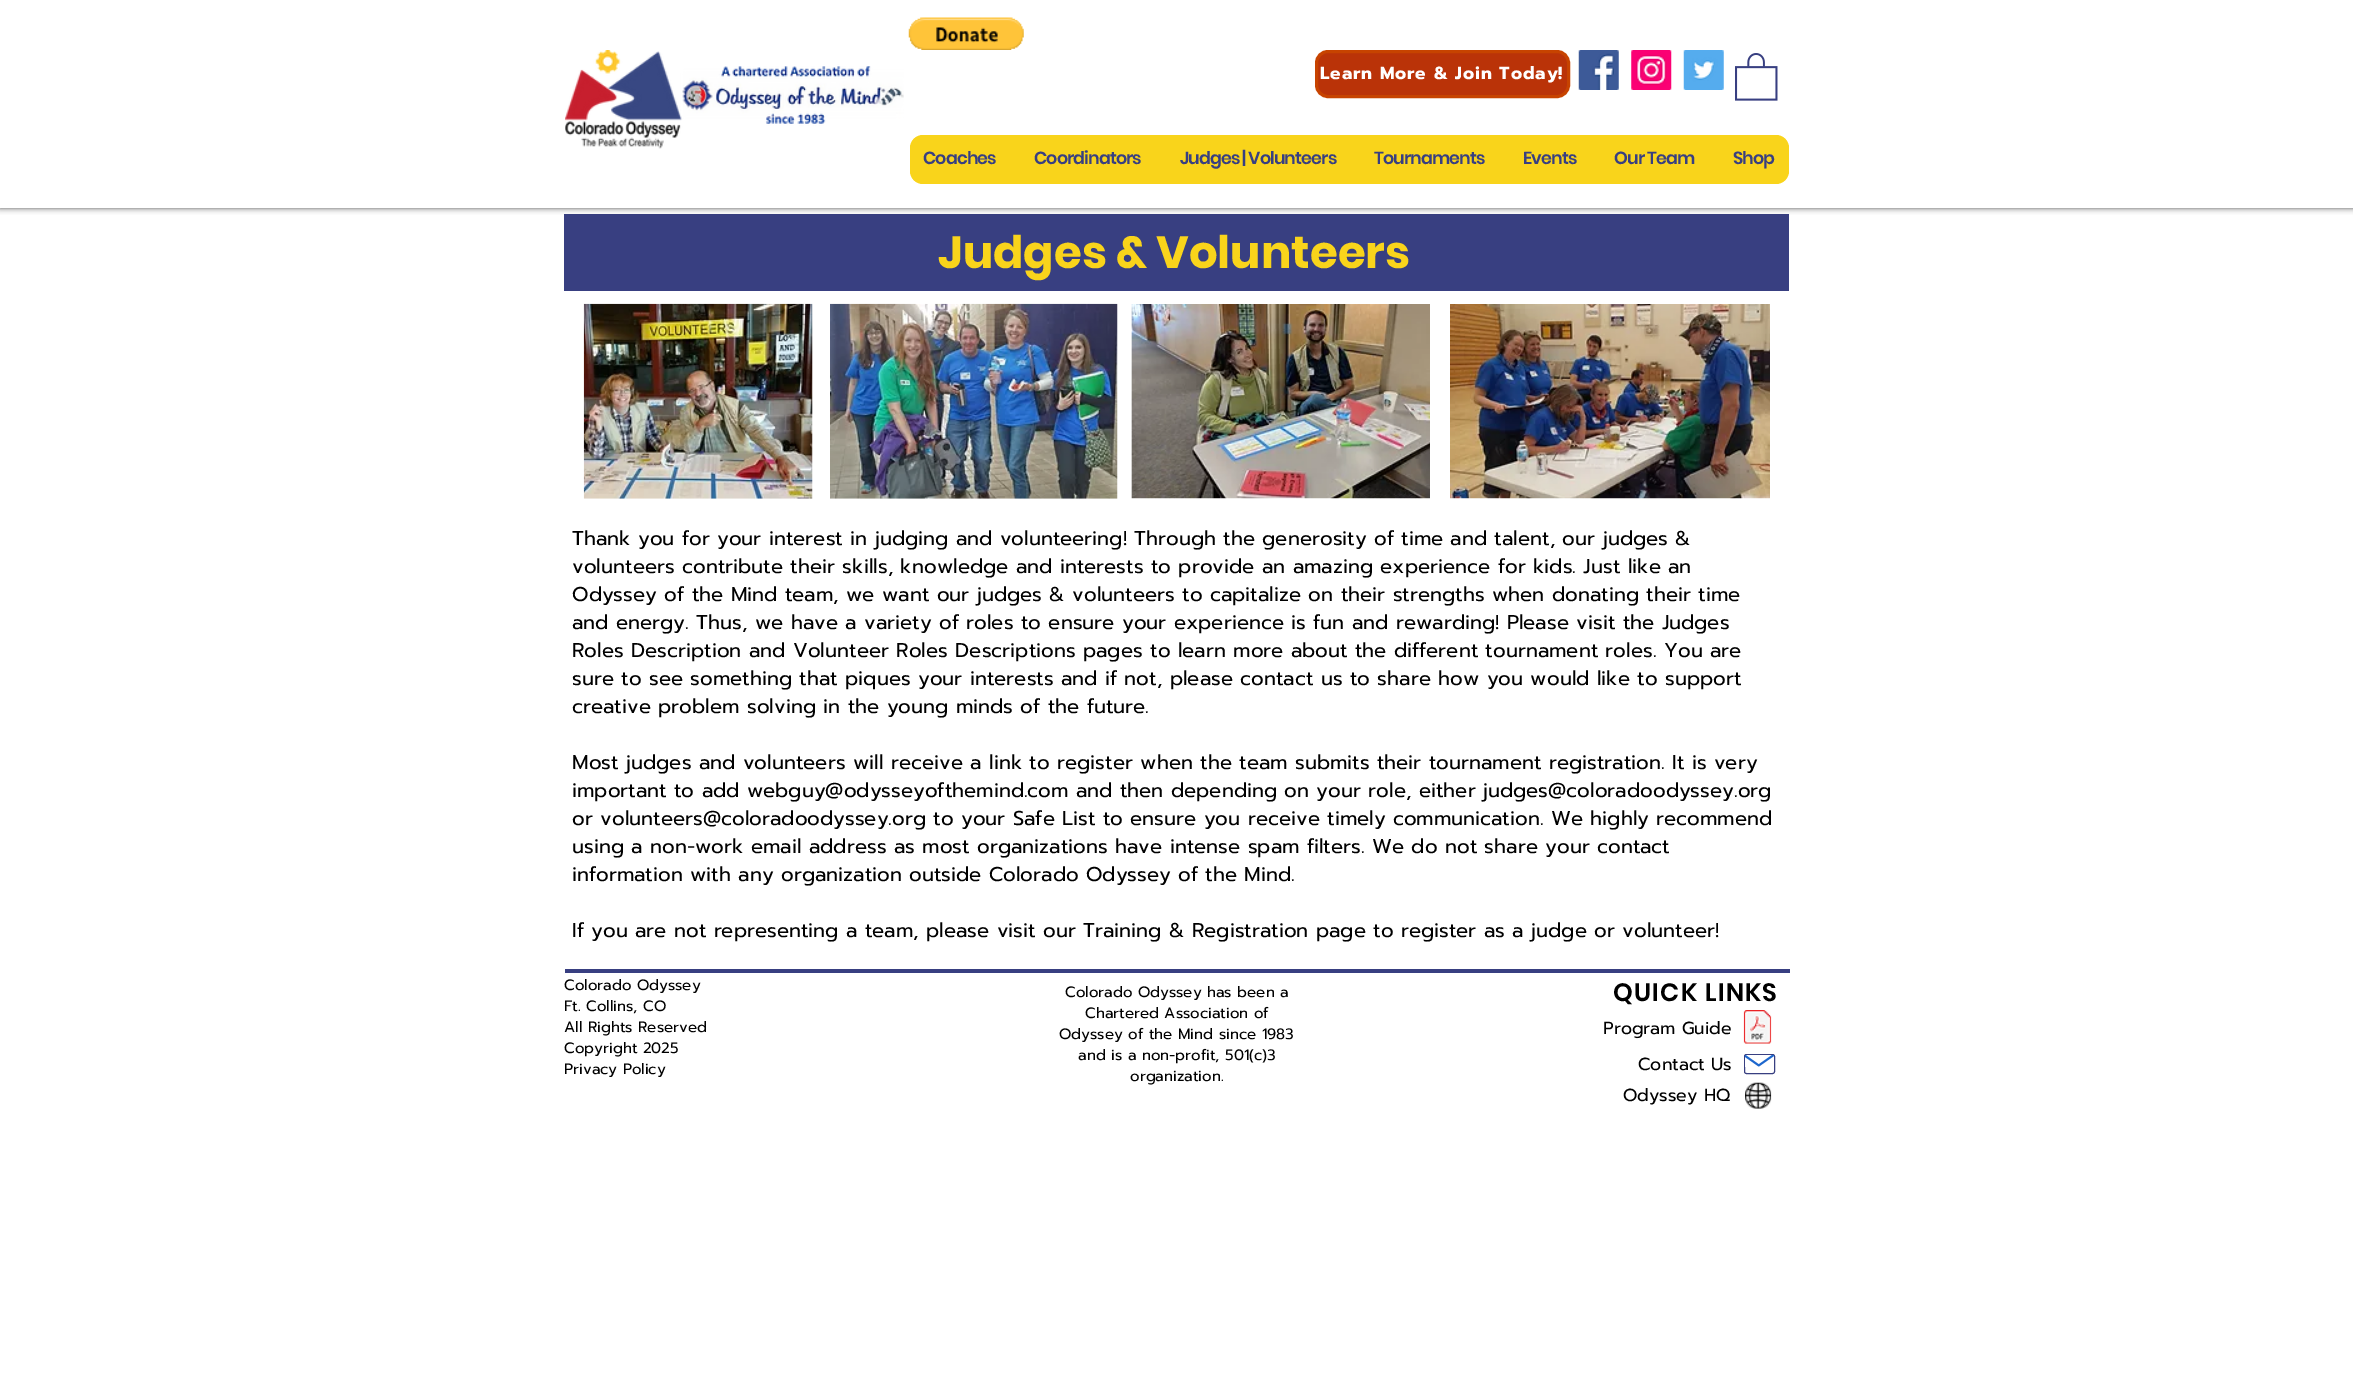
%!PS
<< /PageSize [2353 1397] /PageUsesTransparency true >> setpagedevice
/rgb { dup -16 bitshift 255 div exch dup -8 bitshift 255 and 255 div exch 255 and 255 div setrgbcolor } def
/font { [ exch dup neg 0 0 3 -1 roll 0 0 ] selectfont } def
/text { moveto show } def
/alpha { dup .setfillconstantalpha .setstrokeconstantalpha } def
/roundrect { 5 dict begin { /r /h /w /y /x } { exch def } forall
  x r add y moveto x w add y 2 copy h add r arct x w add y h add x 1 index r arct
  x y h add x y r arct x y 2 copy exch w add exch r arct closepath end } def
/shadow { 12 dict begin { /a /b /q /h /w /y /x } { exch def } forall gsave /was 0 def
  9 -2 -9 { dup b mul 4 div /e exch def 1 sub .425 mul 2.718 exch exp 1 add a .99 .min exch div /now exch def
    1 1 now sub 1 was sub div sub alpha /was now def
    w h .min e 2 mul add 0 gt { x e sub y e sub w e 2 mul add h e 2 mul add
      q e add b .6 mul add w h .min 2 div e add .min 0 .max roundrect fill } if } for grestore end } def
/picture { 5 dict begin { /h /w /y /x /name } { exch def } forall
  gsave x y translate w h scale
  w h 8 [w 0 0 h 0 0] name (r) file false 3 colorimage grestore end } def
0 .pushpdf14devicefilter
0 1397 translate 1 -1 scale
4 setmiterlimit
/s1 { /Poppins-Bold 45 font 16#F9D41B rgb } def
/s2 { /Prompt-Regular 20 font 16#000000 rgb } def
/s3 { /Prompt-Regular 15 font 16#000000 rgb } def
/s4 { /Prompt-Regular 17.5 font 16#000000 rgb } def
16#FFFFFF rgb
0 0 2353 1397 rectfill
16#383F81 rgb
564 214 1225 77 rectfill
16#000000 rgb
0 0 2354 208 0 3 0.7 shadow
16#FFFFFF rgb
0 0 2353 208 rectfill
(pic1.raw) 908 17 116 33 picture
(pic2.raw) 565 50 339 99 picture
16#BA3308 rgb
1316.5 51.5 252 45 11.5 roundrect gsave fill grestore
16#C74300 rgb
3 setlinewidth
stroke
/Prompt-Bold 17.5 font
16#FFFFFF rgb
1320 79 moveto 0.9 0 (Learn More & Join Today!) ashow
(pic3.raw) 1578 50 41 40 picture
(pic4.raw) 1631 50 41 40 picture
(pic5.raw) 1683 50 41 40 picture
(pic6.raw) 1735 53 43 48 picture
16#F9D41B rgb
910 135 879 49 13 roundrect fill
/Poppins-SemiBold 17.5 font
16#383F81 rgb
923 164 moveto -0.9 0 (Coaches) ashow
1034 164 moveto -0.9 0 (Coordinators) ashow
1180 164 moveto -0.9 0 (Judges | Volunteers) ashow
1374 164 moveto -0.9 0 (Tournaments) ashow
1523 164 moveto -0.9 0 (Events) ashow
1614 164 moveto -0.9 0 (Our Team) ashow
1733 164 moveto -0.9 0 (Shop) ashow
s1
(Judges & Volunteers) 938 268 text
(pic7.raw) 583 303 230 196 picture
(pic8.raw) 830 303 288 196 picture
(pic9.raw) 1131 304 299 195 picture
(pic10.raw) 1450 304 320 195 picture
s2
(Thank you for your interest in judging and volunteering! Through the generosity of time and talent, our judges &) 572 545 text
(volunteers contribute their skills, knowledge and interests to provide an amazing experience for kids. Just like an) 572 573 text
(Odyssey of the Mind team, we want our judges & volunteers to capitalize on their strengths when donating their time) 572 601 text
(and energy. Thus, we have a variety of roles to ensure your experience is fun and rewarding! Please visit the Judges) 572 629 text
(Roles Description and Volunteer Roles Descriptions pages to learn more about the different tournament roles. You are) 572 657 text
(sure to see something that piques your interests and if not, please contact us to share how you would like to support) 572 685 text
(creative problem solving in the young minds of the future.) 572 713 text
(Most judges and volunteers will receive a link to register when the team submits their tournament registration. It is very) 572 769 text
(important to add webguy@odysseyofthemind.com and then depending on your role, either judges@coloradoodyssey.org) 572 797 text
(or volunteers@coloradoodyssey.org to your Safe List to ensure you receive timely communication. We highly recommend) 572 825 text
(using a non-work email address as most organizations have intense spam filters. We do not share your contact) 572 853 text
(information with any organization outside Colorado Odyssey of the Mind.) 572 881 text
(If you are not representing a team, please visit our Training & Registration page to register as a judge or volunteer!) 572 937 text
16#383F81 rgb
565 969 1225 4 rectfill
s3
(Colorado Odyssey) 564 990 text
(Ft. Collins, CO) 564 1011 text
(All Rights Reserved) 564 1032 text
(Copyright 2025) 564 1053 text
(Privacy Policy) 564 1074 text
(Colorado Odyssey has been a) 1065 997 text
(Chartered Association of) 1085 1018 text
(Odyssey of the Mind since 1983) 1059 1039 text
(and is a non-profit, 501\(c\)3) 1078 1060 text
(organization.) 1130 1081 text
/Poppins-SemiBold 25 font
1613 1001 moveto 1.25 0 (QUICK LINKS) ashow
s4
(Program Guide) 1603 1034 text
(pic11.raw) 1743 1010 29 34 picture
(Contact Us) 1638 1070 text
16#383F81 rgb
1 setlinewidth
1744.5 1054.5 30 19 2 roundrect stroke
(pic12.raw) 1745 1055 29 12 picture
s4
(Odyssey HQ) 1623 1101 text
(pic13.raw) 1745 1082 27 27 picture
.poppdf14devicefilter showpage
